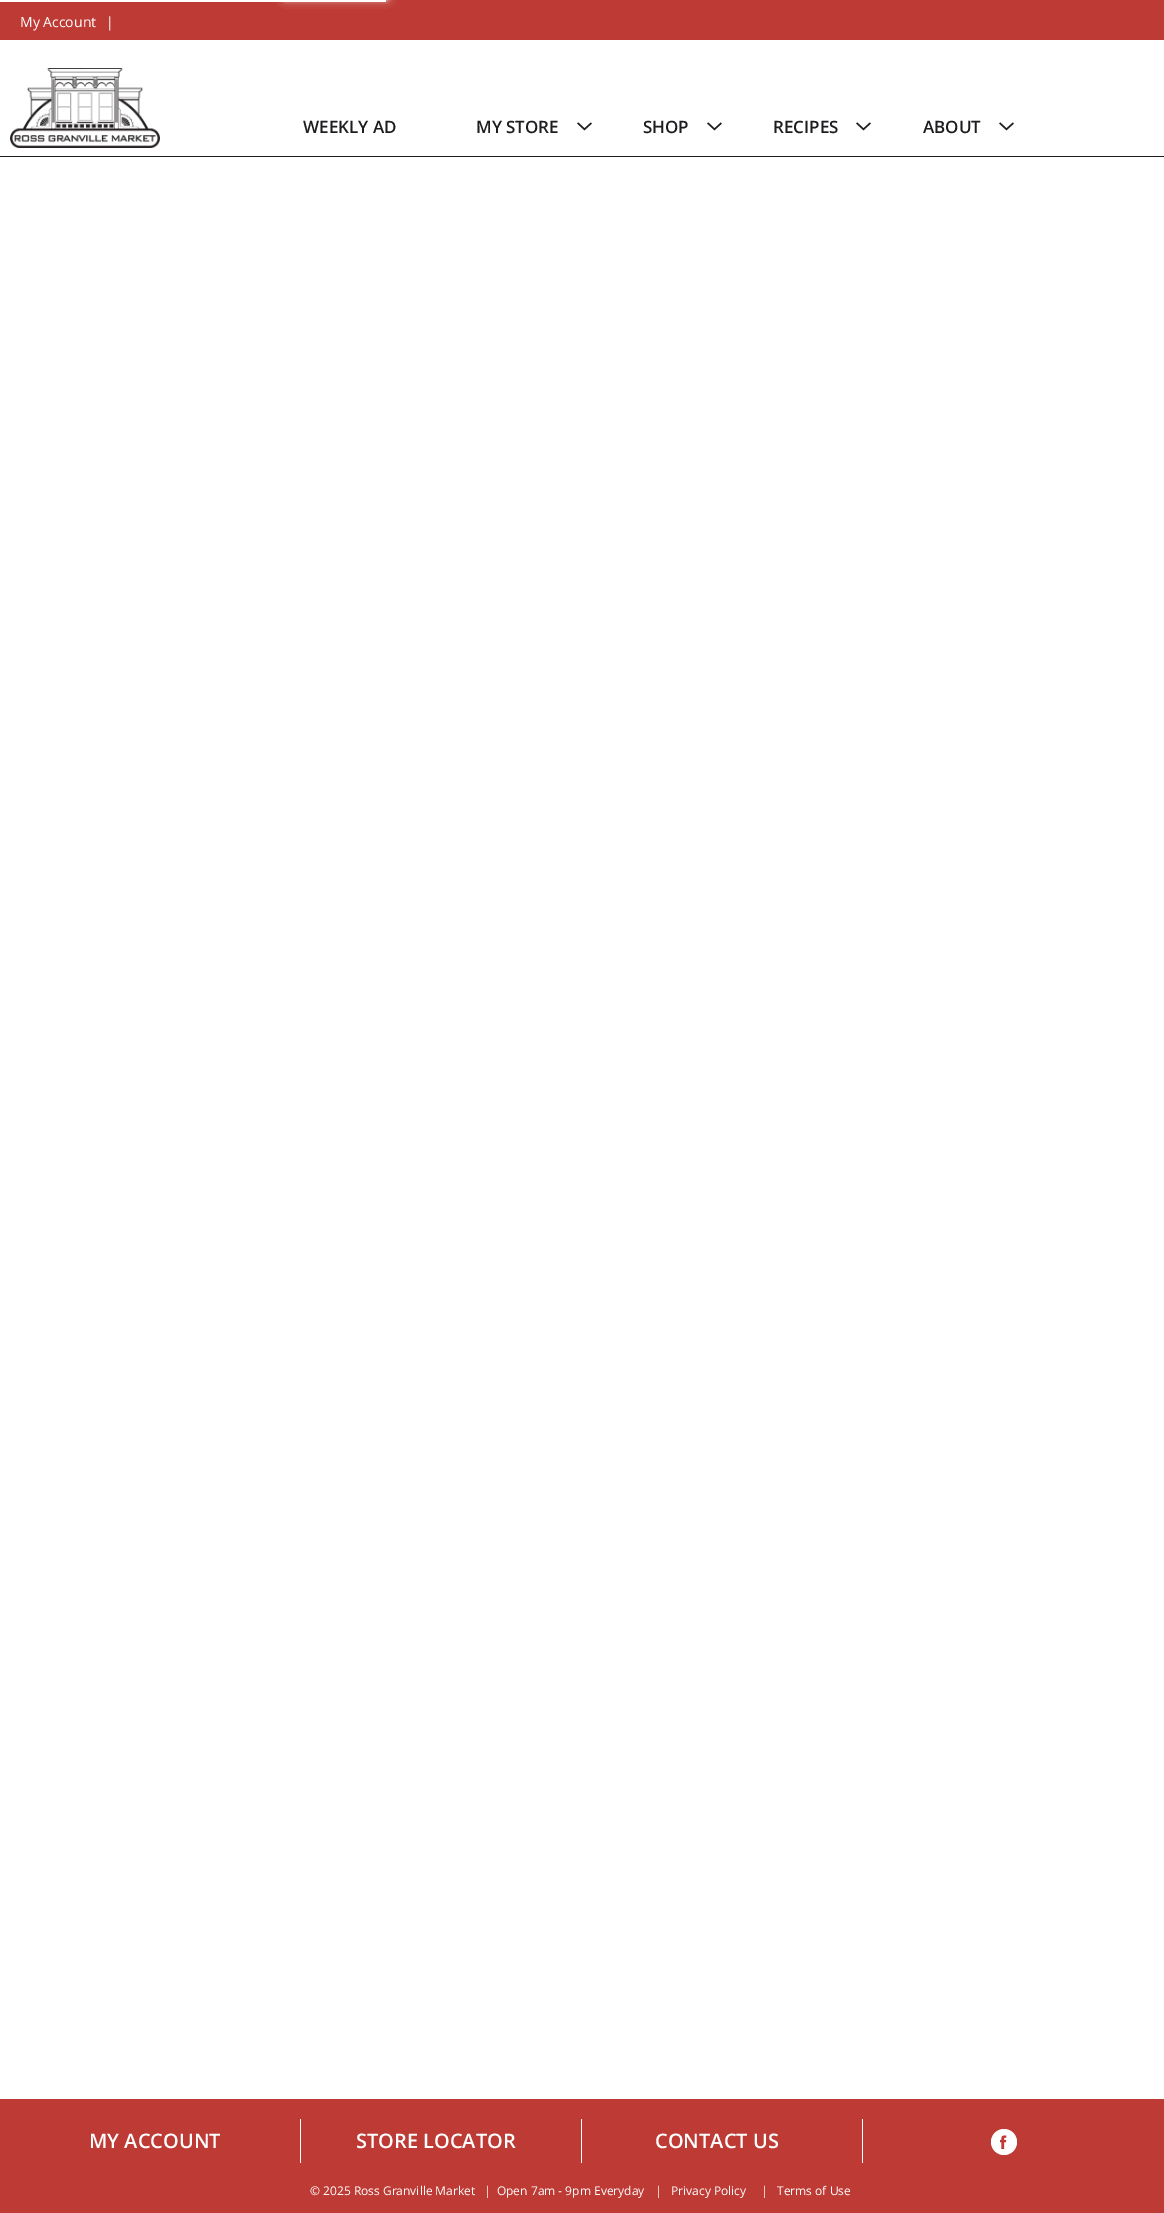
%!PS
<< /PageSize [1164 2213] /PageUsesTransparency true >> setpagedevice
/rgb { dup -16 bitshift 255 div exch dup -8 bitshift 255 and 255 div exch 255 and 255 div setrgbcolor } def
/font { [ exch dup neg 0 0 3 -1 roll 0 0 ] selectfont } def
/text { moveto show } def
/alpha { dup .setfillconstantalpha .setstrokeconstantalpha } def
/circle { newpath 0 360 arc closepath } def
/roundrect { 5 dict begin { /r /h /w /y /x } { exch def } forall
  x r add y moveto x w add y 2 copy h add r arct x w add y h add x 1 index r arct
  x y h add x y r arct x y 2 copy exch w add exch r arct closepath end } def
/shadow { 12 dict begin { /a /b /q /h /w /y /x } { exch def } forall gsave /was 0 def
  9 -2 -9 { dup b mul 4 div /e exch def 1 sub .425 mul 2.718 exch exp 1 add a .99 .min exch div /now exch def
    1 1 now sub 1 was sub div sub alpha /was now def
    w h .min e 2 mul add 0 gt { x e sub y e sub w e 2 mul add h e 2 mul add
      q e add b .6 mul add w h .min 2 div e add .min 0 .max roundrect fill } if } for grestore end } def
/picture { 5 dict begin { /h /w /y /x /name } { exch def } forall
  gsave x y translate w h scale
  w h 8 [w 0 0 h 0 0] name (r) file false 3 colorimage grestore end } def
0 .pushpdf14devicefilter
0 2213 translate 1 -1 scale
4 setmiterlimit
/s1 { /OpenSans-Regular 14 font 16#FFFFFF rgb } def
/s2 { /OpenSans-SemiBold 17 font 16#1D1D1F rgb } def
/s3 { /OpenSans-SemiBold 20 font 16#FFFFFF rgb } def
/s4 { /OpenSans-Regular 12 font 16#FFFFFF rgb } def
16#FFFFFF rgb
0 0 1164 2213 rectfill
16#BE3A34 rgb
0 0 1164 40 rectfill
16#FFFFFF rgb
0 0 386 2 rectfill
286 -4 100 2 0 2.5 1 shadow
286 -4 100 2 0 5 1 shadow
s1
(My Account) 20 27 text
(|) 106 27 text
(pic1.raw) 10 68 150 80 picture
16#1D1D1F rgb
0 156 1164 1 rectfill
s2
(WEEKLY AD) 303 133 text
(MY STORE) 476 133 text
(pic2.raw) 577 122 15 9 picture
(SHOP) 643 133 text
(pic2.raw) 707 122 15 9 picture
(RECIPES) 773 133 text
(pic2.raw) 856 122 15 9 picture
(ABOUT) 923 133 text
(pic2.raw) 999 122 15 9 picture
16#BE3A34 rgb
0 2099 1164 114 rectfill
16#FFFFFF rgb
300 2119 1 44 rectfill
s3
(MY ACCOUNT) 89 2148 text
581 2119 1 44 rectfill
(STORE LOCATOR) 356 2148 text
862 2119 1 44 rectfill
(CONTACT US) 655 2148 text
1004 2142 13 circle fill
(pic3.raw) 1000 2135 7 15 picture
s4
(© 2025 Ross Granville Market) 310 2195 text
(|  Open 7am - 9pm Everyday) 484 2195 text
(|) 655 2195 text
(Privacy Policy) 671 2195 text
(|) 761 2195 text
(Terms of Use) 777 2195 text
.poppdf14devicefilter showpage
